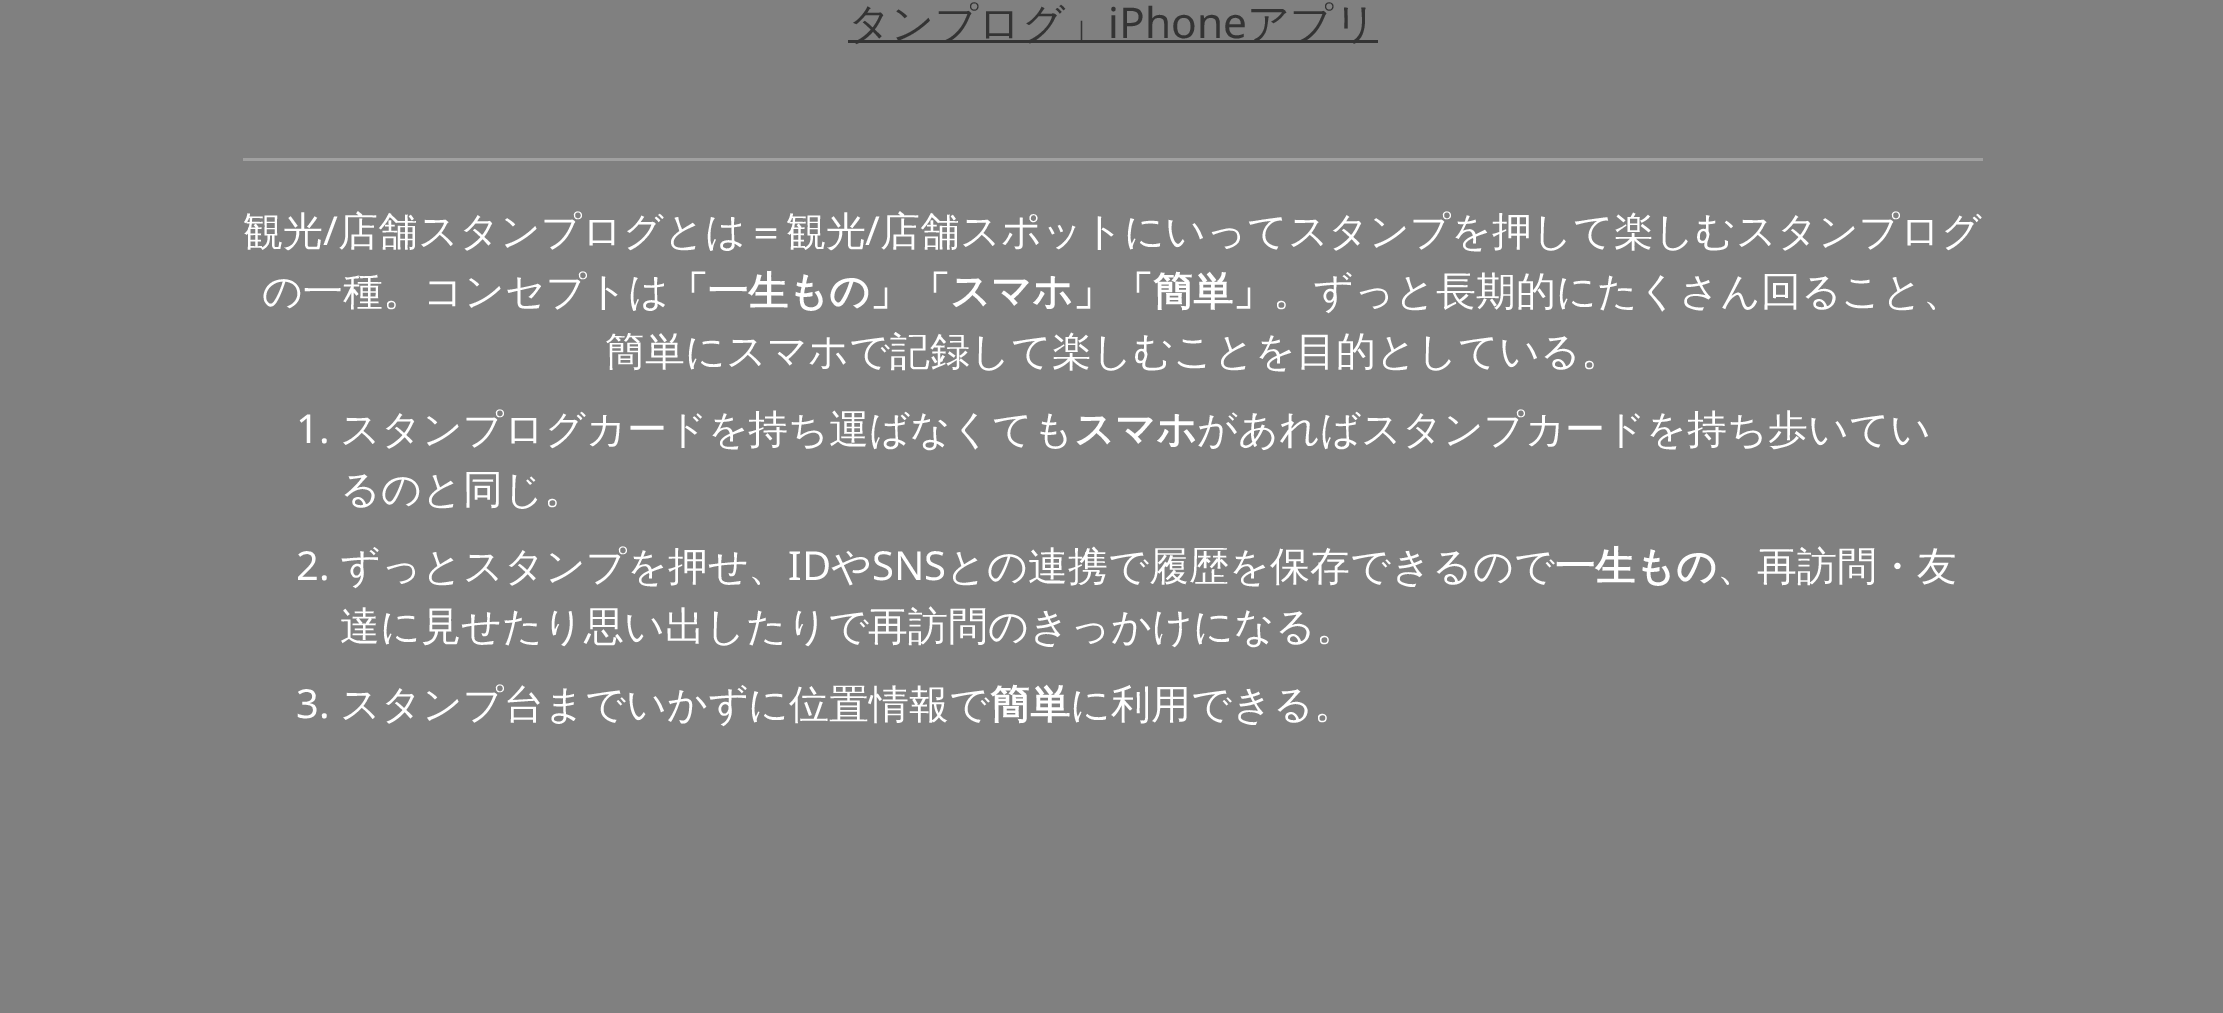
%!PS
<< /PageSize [2223 1013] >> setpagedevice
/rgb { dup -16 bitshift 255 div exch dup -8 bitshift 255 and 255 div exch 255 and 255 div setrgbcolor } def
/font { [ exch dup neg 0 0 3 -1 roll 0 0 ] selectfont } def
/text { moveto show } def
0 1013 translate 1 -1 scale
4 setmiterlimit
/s1 { /WenQuanYiZenHei-Medium 42.5 font 16#343434 rgb } def
/s2 { /NotoSans-Regular 42.5 font 16#343434 rgb } def
/s3 { /WenQuanYiZenHei-Medium 40 font 16#FFFFFF rgb } def
/s4 { /NotoSans-Regular 40 font 16#FFFFFF rgb } def
/s5 { /WenQuanYiZenHei-Bold 40 font 16#FFFFFF rgb } def
16#808080 rgb
0 0 2223 1013 rectfill
16#343434 rgb
848 40 530 3 rectfill
s1
(タンプログ」) 848 38 text
s2
(iPhone) 1108 38 text
s1
(アプリ) 1247 38 text
16#A0A0A0 rgb
243 158 1740 3 rectfill
s3
(観光) 243 245 text
s4
(/) 323 245 text
s3
(店舗スタンプログとは＝観光) 338 245 text
s4
(/) 865 245 text
s3
(店舗スポットにいってスタンプを押して楽しむスタンプログ) 880 245 text
(の一種。コンセプトは) 262 305 text
s5
(「一生もの」「スマホ」「簡単」) 668 305 text
s3
(。ずっと長期的にたくさん回ること、) 1273 305 text
(簡単にスマホで記録して楽しむことを目的としている。) 605 365 text
s4
(1.) 296 443 text
s3
(スタンプログカードを持ち運ばなくても) 340 443 text
s5
(スマホ) 1074 443 text
s3
(があればスタンプカードを持ち歩いてい) 1197 443 text
(るのと同じ。) 340 503 text
s4
(2.) 296 580 text
s3
(ずっとスタンプを押せ、) 340 580 text
s4
(ID) 788 580 text
s3
(や) 831 580 text
s4
(SNS) 872 580 text
s3
(との連携で履歴を保存できるので) 946 580 text
s5
(一生もの) 1555 580 text
s3
(、再訪問・友) 1717 580 text
(達に見せたり思い出したりで再訪問のきっかけになる。) 340 640 text
s4
(3.) 296 718 text
s3
(スタンプ台までいかずに位置情報で) 340 718 text
s5
(簡単) 990 718 text
s3
(に利用できる。) 1070 718 text
showpage
